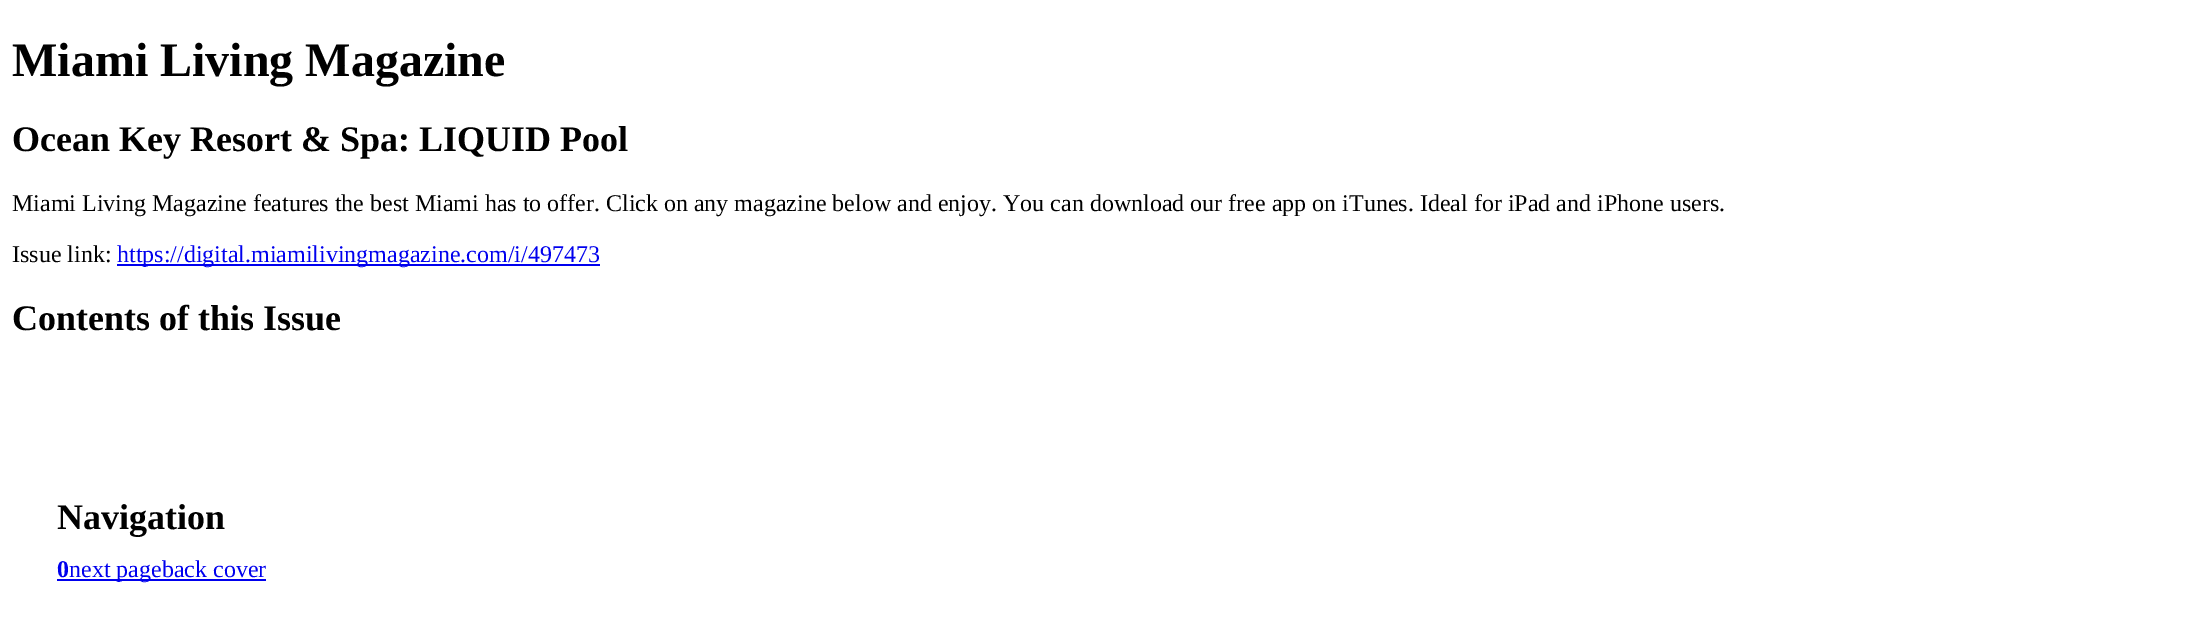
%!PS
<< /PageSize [2202 629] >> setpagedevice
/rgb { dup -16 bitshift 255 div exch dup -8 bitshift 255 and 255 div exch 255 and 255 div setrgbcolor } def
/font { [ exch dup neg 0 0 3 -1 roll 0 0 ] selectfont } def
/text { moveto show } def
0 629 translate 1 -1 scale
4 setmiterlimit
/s1 { /LiberationSerif-Bold 48 font 16#000000 rgb } def
/s2 { /LiberationSerif-Bold 36 font 16#000000 rgb } def
/s3 { /LiberationSerif-Regular 24 font 16#000000 rgb } def
/s4 { /LiberationSerif-Regular 24 font 16#0000EE rgb } def
/s5 { /LiberationSerif-Bold 24 font 16#0000EE rgb } def
16#FFFFFF rgb
0 0 2202 629 rectfill
s1
(Miami Living Magazine) 12 76 text
s2
(Ocean Key Resort & Spa: LIQUID Pool) 12 151 text
s3
(Miami Living Magazine features the best Miami has to offer. Click on any magazine below and enjoy. You can download our free app on iTunes. Ideal for iPad and iPhone users.) 12 211 text
(Issue link:) 12 262 text
16#0000EE rgb
117 264 483 2 rectfill
(https://digital.miamilivingmagazine.com/i/497473) 117 262 text
s2
(Contents of this Issue) 12 330 text
(Navigation) 57 529 text
s5
(0) 57 577 text
57 579 209 2 rectfill
s4
(next pageback cover) 69 577 text
showpage
